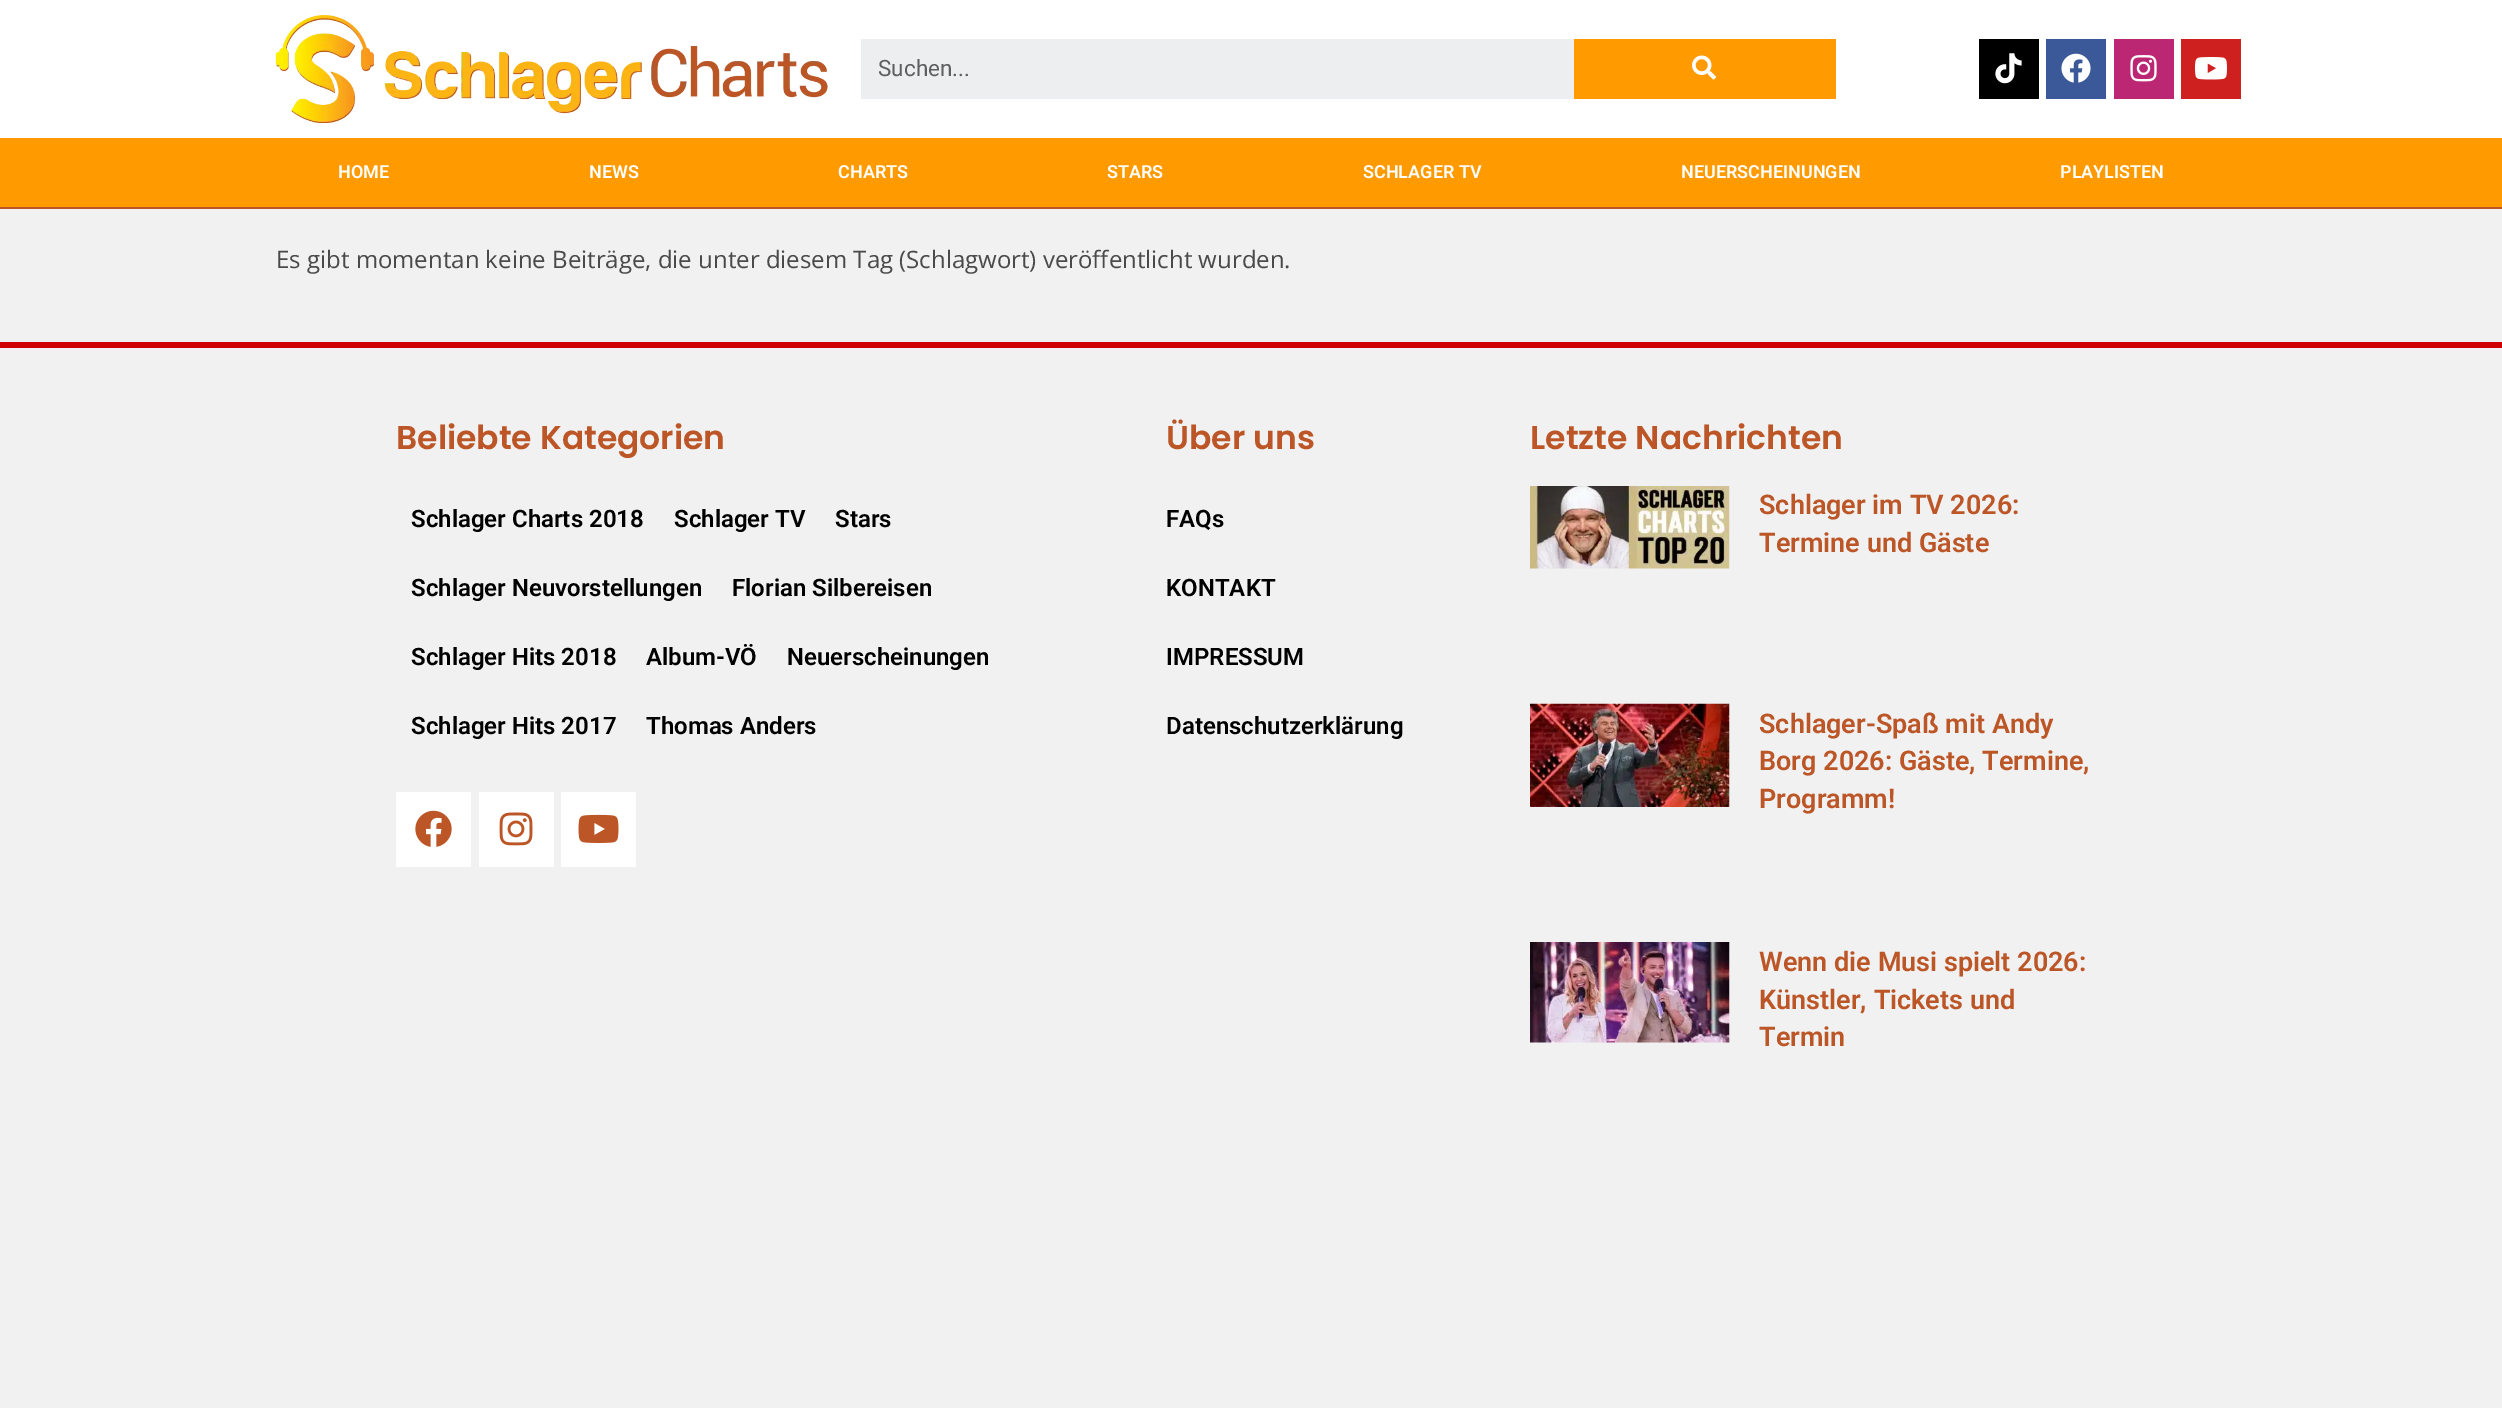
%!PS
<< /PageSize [2502 1408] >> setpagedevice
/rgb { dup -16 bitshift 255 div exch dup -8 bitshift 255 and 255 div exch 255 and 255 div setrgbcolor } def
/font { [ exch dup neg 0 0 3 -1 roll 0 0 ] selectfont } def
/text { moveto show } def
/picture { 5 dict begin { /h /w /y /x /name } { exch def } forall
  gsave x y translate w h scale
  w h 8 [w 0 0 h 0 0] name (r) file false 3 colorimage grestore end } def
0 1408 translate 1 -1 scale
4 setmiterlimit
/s1 { /Roboto-Regular 22.5 font 16#5E5F60 rgb } def
/s2 { /Roboto-SemiBold 18 font 16#FFFFFF rgb } def
/s3 { /OpenSans-Regular 24 font 16#4A4A4A rgb } def
/s4 { /Poppins-SemiBold 33 font 16#BC5627 rgb } def
/s5 { /Roboto-SemiBold 24 font 16#000000 rgb } def
/s6 { /Roboto-SemiBold 27 font 16#BC5627 rgb } def
16#F1F1F1 rgb
0 0 2502 1408 rectfill
16#FFFFFF rgb
0 0 2502 138 rectfill
16#BC5627 rgb
0 207 2502 2 rectfill
(pic1.raw) 275 15 553 108 picture
16#ECEEEF rgb
861 39 713 60 rectfill
s1
(Suchen...) 878 76 text
16#FF9A00 rgb
1574 39 262 60 rectfill
(pic2.raw) 1692 55 24 25 picture
16#000000 rgb
1979 39 60 60 rectfill
(pic3.raw) 1995 53 27 31 picture
16#3B5998 rgb
2046 39 60 60 rectfill
(pic4.raw) 2061 53 30 30 picture
16#BC2773 rgb
2114 39 60 60 rectfill
(pic5.raw) 2130 55 27 27 picture
16#CD201F rgb
2181 39 60 60 rectfill
(pic6.raw) 2195 57 32 23 picture
16#FF9A00 rgb
0 138 2502 69 rectfill
s2
(HOME) 338 178 text
(NEWS) 589 178 text
(CHARTS) 838 178 text
(STARS) 1107 178 text
(SCHLAGER TV) 1363 178 text
(NEUERSCHEINUNGEN) 1681 178 text
(PLAYLISTEN) 2060 178 text
s3
(Es gibt momentan keine Beiträge, die unter diesem Tag \(Schlagwort\) veröffentlicht wurden.) 276 268 text
16#CF0000 rgb
0 342 2502 6 rectfill
s4
(Beliebte Kategorien) 396 449 text
s5
(Schlager Charts 2018) 411 527 text
(Schlager TV) 674 527 text
(Stars) 835 527 text
(Schlager Neuvorstellungen) 411 596 text
(Florian Silbereisen) 732 596 text
(Schlager Hits 2018) 411 665 text
(Album-VÖ) 646 665 text
(Neuerscheinungen) 787 665 text
(Schlager Hits 2017) 411 734 text
(Thomas Anders) 646 734 text
16#FFFFFF rgb
396 792 75 75 rectfill
(pic7.raw) 415 810 37 37 picture
479 792 75 75 rectfill
(pic8.raw) 499 812 34 34 picture
561 792 75 75 rectfill
(pic9.raw) 578 814 41 29 picture
s4
(Über uns) 1166 449 text
s5
(FAQs) 1166 527 text
(KONTAKT) 1166 596 text
(IMPRESSUM) 1166 665 text
(Datenschutzerklärung) 1166 734 text
s4
(Letzte Nachrichten) 1530 449 text
(pic10.raw) 1530 486 200 83 picture
s6
(Schlager im TV 2026:) 1759 514 text
(Termine und Gäste) 1759 552 text
(pic11.raw) 1530 703 200 104 picture
(Schlager-Spaß mit Andy) 1759 733 text
(Borg 2026: Gäste, Termine,) 1759 770 text
(Programm!) 1759 808 text
(pic12.raw) 1530 942 200 101 picture
(Wenn die Musi spielt 2026:) 1759 971 text
(Künstler, Tickets und) 1759 1009 text
(Termin) 1759 1046 text
showpage
